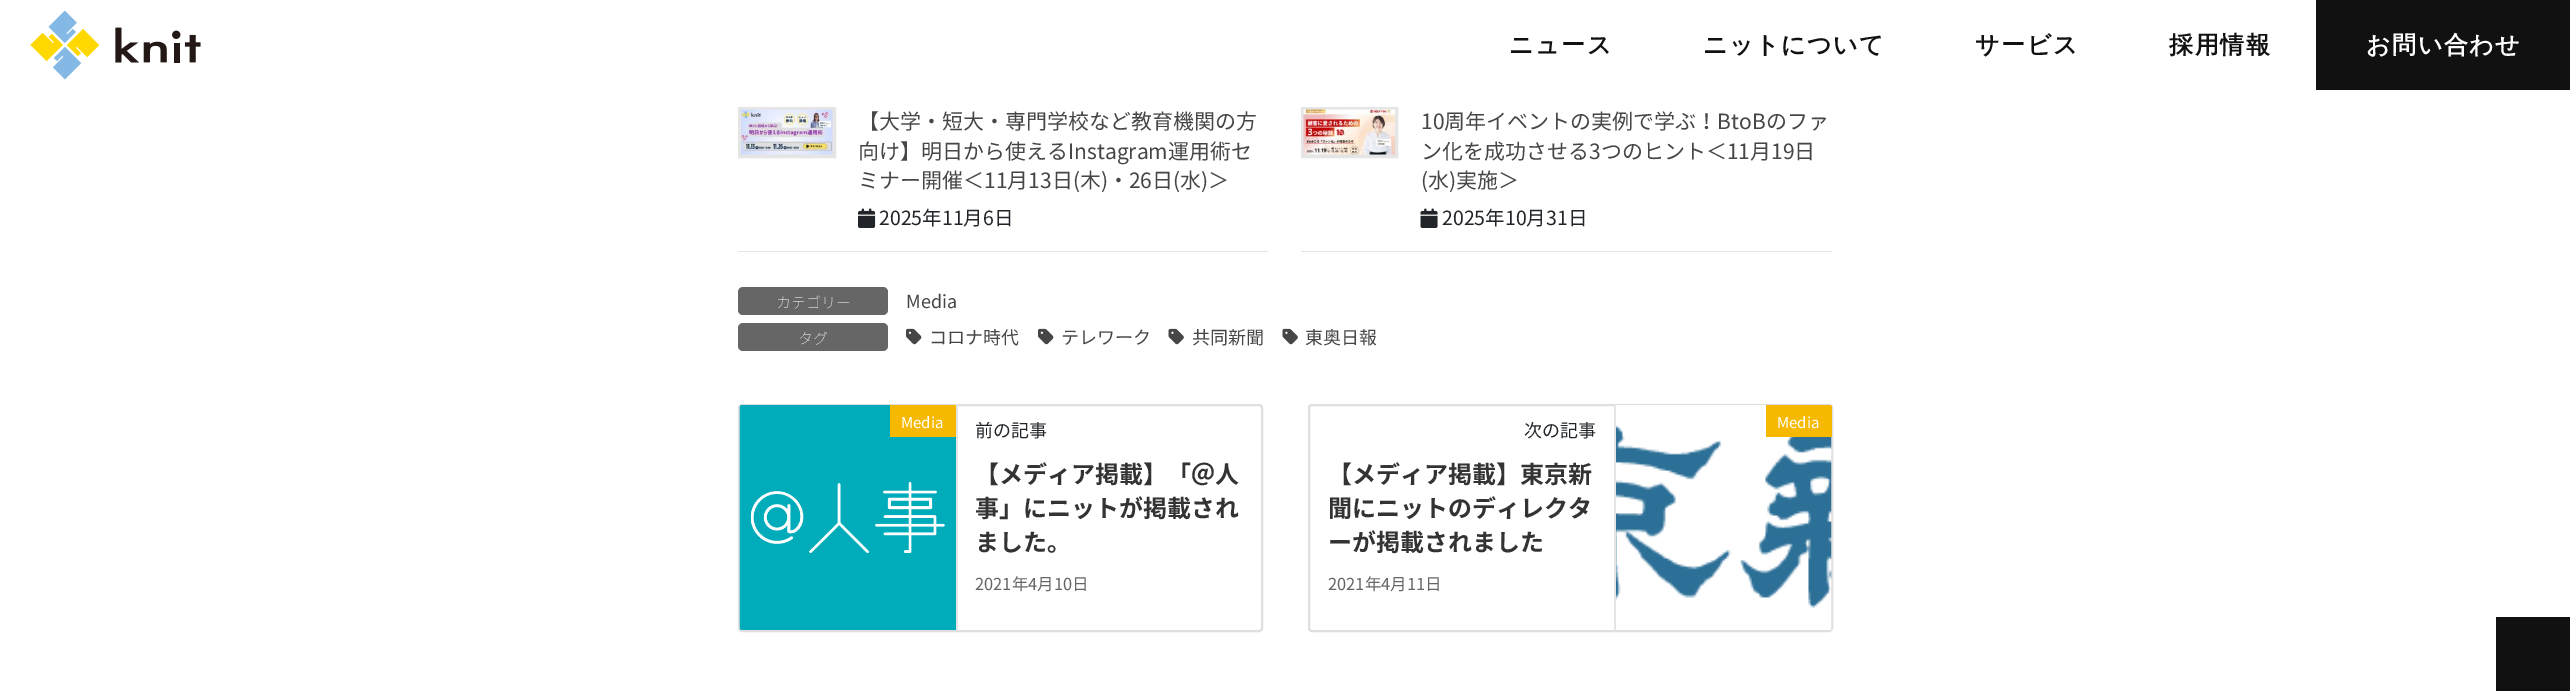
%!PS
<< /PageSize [2570 691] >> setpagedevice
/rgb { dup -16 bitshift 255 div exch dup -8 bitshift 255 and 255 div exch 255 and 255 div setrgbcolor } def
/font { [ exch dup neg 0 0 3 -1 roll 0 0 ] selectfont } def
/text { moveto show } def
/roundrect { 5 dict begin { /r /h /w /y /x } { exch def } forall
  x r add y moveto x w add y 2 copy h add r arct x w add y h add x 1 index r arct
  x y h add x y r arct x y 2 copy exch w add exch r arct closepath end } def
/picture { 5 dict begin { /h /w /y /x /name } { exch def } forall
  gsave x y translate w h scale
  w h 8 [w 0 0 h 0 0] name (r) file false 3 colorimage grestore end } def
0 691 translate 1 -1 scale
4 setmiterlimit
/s1 { /NotoSansJP-Regular 21 font 16#464646 rgb } def
/s2 { /NotoSansJP-Regular 19.5 font 16#212529 rgb } def
/s3 { /NotoSansJP-Thin 15 font 16#FFFFFF rgb } def
/s4 { /NotoSansJP-Regular 18 font 16#464646 rgb } def
/s5 { /NotoSansJP-Regular 15 font 16#FFFFFF rgb } def
/s6 { /NotoSansJP-Regular 18 font 16#212529 rgb } def
/s7 { /NotoSansJP-Bold 24 font 16#333333 rgb } def
/s8 { /NotoSansJP-Regular 16.5 font 16#666666 rgb } def
16#FFFFFF rgb
0 0 2570 691 rectfill
(pic1.raw) 30 11 171 69 picture
/WenQuanYiZenHei-Bold 24 font
16#111111 rgb
1509 53 moveto 1.5 0 (ニュース) ashow
1703 53 moveto 1.5 0 (ニットについて) ashow
1975 53 moveto 1.5 0 (サービス) ashow
2169 53 moveto 1.5 0 (採用情報) ashow
2316 0 254 90 rectfill
16#FFFFFF rgb
2366 53 moveto 1.5 0 (お問い合わせ) ashow
16#E5E5E5 rgb
738 251 530 1 rectfill
2 setlinewidth
739 108 96 49 rectstroke
741 109 92 46 rectstroke
(pic2.raw) 741 109 92 46 picture
s1
(【大学・短大・専門学校など教育機関の方) 858 129 text
(向け】明日から使えるInstagram運用術セ) 858 159 text
(ミナー開催＜11月13日\(木\)・26日\(水\)＞) 858 188 text
(pic3.raw) 858 208 18 20 picture
s2
(2025年11月6日) 879 225 text
16#E5E5E5 rgb
1301 251 531 1 rectfill
1302 108 95 49 rectstroke
1303 109 93 46 rectstroke
(pic4.raw) 1303 109 92 46 picture
s1
(10周年イベントの実例で学ぶ！BtoBのファ) 1421 129 text
(ン化を成功させる3つのヒント＜11月19日) 1421 159 text
(\(水\)実施＞) 1421 188 text
(pic5.raw) 1420 208 18 20 picture
s2
(2025年10月31日) 1442 225 text
16#666666 rgb
738 287 150 28 5 roundrect fill
s3
(カテゴリー) 776 308 text
s4
(Media) 906 308 text
16#666666 rgb
738 323 150 28 5 roundrect fill
s3
(タグ) 798 344 text
(pic6.raw) 906 328 16 17 picture
s4
(コロナ時代) 929 344 text
(pic6.raw) 1038 328 16 17 picture
(テレワーク) 1061 344 text
(pic7.raw) 1168 328 16 17 picture
(共同新聞) 1192 344 text
(pic7.raw) 1282 328 16 17 picture
(東奥日報) 1305 344 text
16#DFDFDF rgb
739 405 523 226 3 roundrect stroke
(pic8.raw) 739 405 217 225 picture
16#E5E5E5 rgb
956 405 2 225 rectfill
16#F7B900 rgb
890 405 66 32 rectfill
s5
(Media) 901 428 text
s6
(前の記事) 975 437 text
s7
(【メディア掲載】「＠人) 975 483 text
(事」にニットが掲載され) 975 517 text
(ました。) 975 551 text
s8
(2021年4月10日) 975 590 text
16#DFDFDF rgb
1309 405 523 226 3 roundrect stroke
s6
(次の記事) 1524 437 text
s7
(【メディア掲載】東京新) 1328 483 text
(聞にニットのディレクタ) 1328 517 text
(ーが掲載されました) 1328 551 text
s8
(2021年4月11日) 1328 590 text
(pic9.raw) 1616 405 216 225 picture
16#E5E5E5 rgb
1614 405 2 225 rectfill
16#F7B900 rgb
1766 405 moveto 1830 405 lineto 1831 405 1832 406 1832 407 curveto 1832 437 lineto 1766 437 lineto closepath fill
s5
(Media) 1777 428 text
16#111111 rgb
2496 617 74 74 rectfill
showpage
